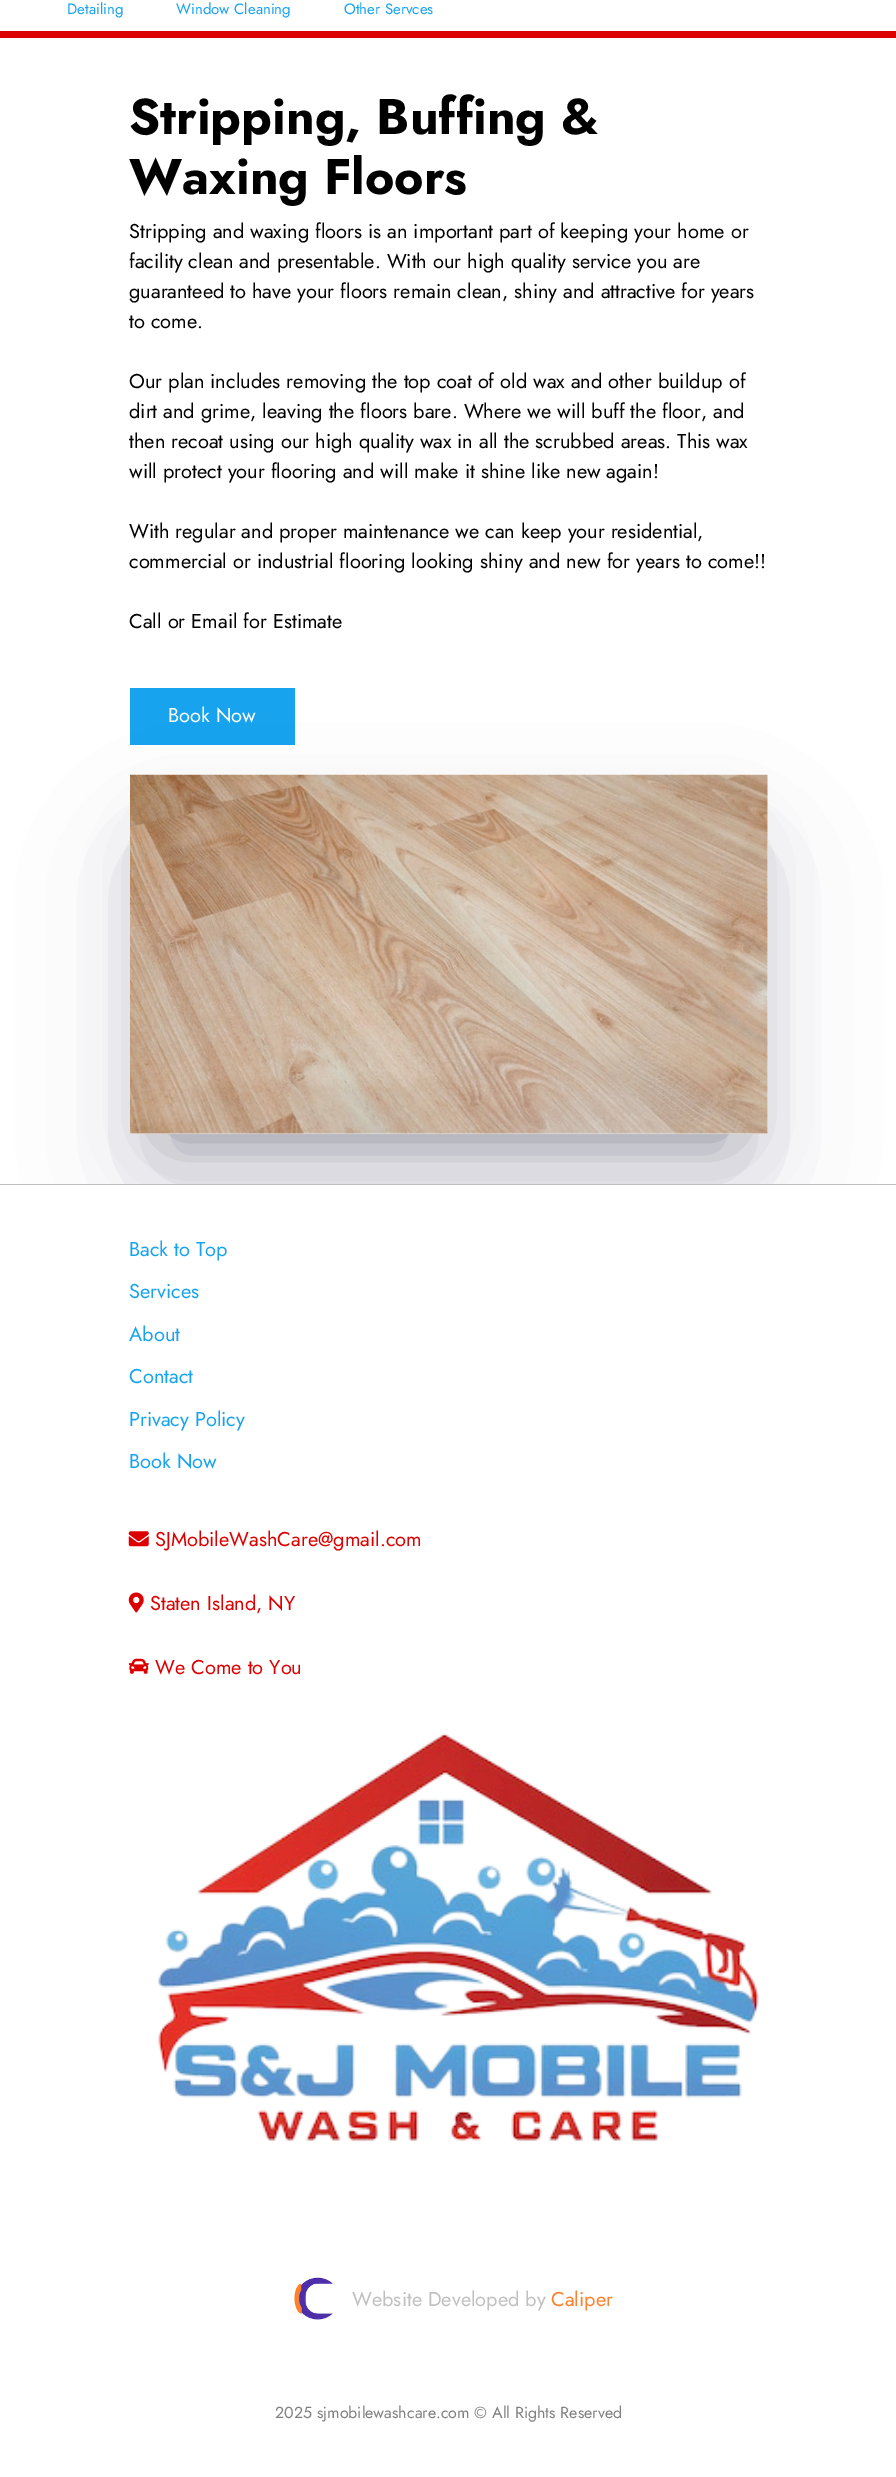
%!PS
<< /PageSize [896 2477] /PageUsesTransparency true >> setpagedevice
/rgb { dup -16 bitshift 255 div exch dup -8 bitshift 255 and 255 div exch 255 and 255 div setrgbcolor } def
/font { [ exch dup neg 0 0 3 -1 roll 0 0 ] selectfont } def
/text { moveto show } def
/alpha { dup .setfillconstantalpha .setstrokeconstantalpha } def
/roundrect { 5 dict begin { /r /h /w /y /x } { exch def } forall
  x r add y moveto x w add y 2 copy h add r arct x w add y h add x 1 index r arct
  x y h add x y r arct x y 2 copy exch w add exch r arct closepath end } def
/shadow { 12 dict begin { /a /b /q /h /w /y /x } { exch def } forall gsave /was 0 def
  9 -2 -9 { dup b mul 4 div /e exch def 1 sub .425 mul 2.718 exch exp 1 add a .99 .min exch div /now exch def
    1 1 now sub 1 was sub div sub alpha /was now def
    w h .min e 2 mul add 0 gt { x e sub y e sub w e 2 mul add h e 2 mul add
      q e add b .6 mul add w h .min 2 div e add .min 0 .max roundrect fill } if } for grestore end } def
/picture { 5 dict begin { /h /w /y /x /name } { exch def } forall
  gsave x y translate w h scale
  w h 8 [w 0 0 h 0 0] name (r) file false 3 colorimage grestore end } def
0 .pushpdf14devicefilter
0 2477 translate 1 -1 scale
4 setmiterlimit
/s1 { /Jost-Regular 15 font 16#17A3EE rgb } def
/s2 { /Jost-Bold 50 font 16#000000 rgb } def
/s3 { /Jost-Regular 20 font 16#000000 rgb } def
/s4 { /Jost-Regular 20 font 16#FFFFFF rgb } def
/s5 { /Jost-Regular 20 font 16#17A3EE rgb } def
/s6 { /Jost-Regular 20 font 16#DD0000 rgb } def
/s7 { /Jost-Regular 20 font 16#C0C0C0 rgb } def
/s8 { /Jost-Regular 20 font 16#FE7F2D rgb } def
/s9 { /Jost-Regular 16 font 16#808080 rgb } def
16#FFFFFF rgb
0 0 896 2477 rectfill
16#DD0000 rgb
0 31 896 7 rectfill
s1
(Detailing) 67 14 text
(Window Cleaning) 176 14 text
(Other Servces) 344 14 text
s2
(Stripping, Buffing &) 129 134 text
(Waxing Floors) 129 194 text
s3
(Stripping and waxing floors is an important part of keeping your home or) 129 238 text
(facility clean and presentable. With our high quality service you are) 129 268 text
(guaranteed to have your floors remain clean, shiny and attractive for years) 129 298 text
(to come.) 129 328 text
(Our plan includes removing the top coat of old wax and other buildup of) 129 388 text
(dirt and grime, leaving the floors bare. Where we will buff the floor, and) 129 418 text
(then recoat using our high quality wax in all the scrubbed areas. This wax) 129 448 text
(will protect your flooring and will make it shine like new again!) 129 478 text
(With regular and proper maintenance we can keep your residential,) 129 538 text
(commercial or industrial flooring looking shiny and new for years to come!!) 129 568 text
(Call or Email for Estimate) 129 628 text
16#17A3EE rgb
130 688 165 57 rectfill
s4
(Book Now) 168 722 text
16#C0C0C0 rgb
0 1184 896 1 rectfill
gsave
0 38 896 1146 rectclip
16#32325D rgb
155 863 588 308 0 62.5 0.25 shadow
16#000000 rgb
168 850 562 284 0 37.5 0.3 shadow
grestore
(pic1.raw) 130 774 638 360 picture
s5
(Back to Top) 129 1256 text
(Services) 129 1298 text
(About) 129 1341 text
(Contact) 129 1383 text
(Privacy Policy) 129 1426 text
(Book Now) 129 1468 text
(pic2.raw) 128 1531 21 16 picture
s6
(SJMobileWashCare@gmail.com) 155 1546 text
(pic3.raw) 128 1592 16 21 picture
(Staten Island, NY) 150 1610 text
(pic4.raw) 128 1658 21 16 picture
(We Come to You) 155 1674 text
(pic5.raw) 158 1733 601 409 picture
(pic6.raw) 294 2277 39 43 picture
s7
(Website Developed by) 352 2306 text
s8
(Caliper) 551 2306 text
s9
(2025 sjmobilewashcare.com © All Rights Reserved) 275 2418 text
.poppdf14devicefilter showpage
